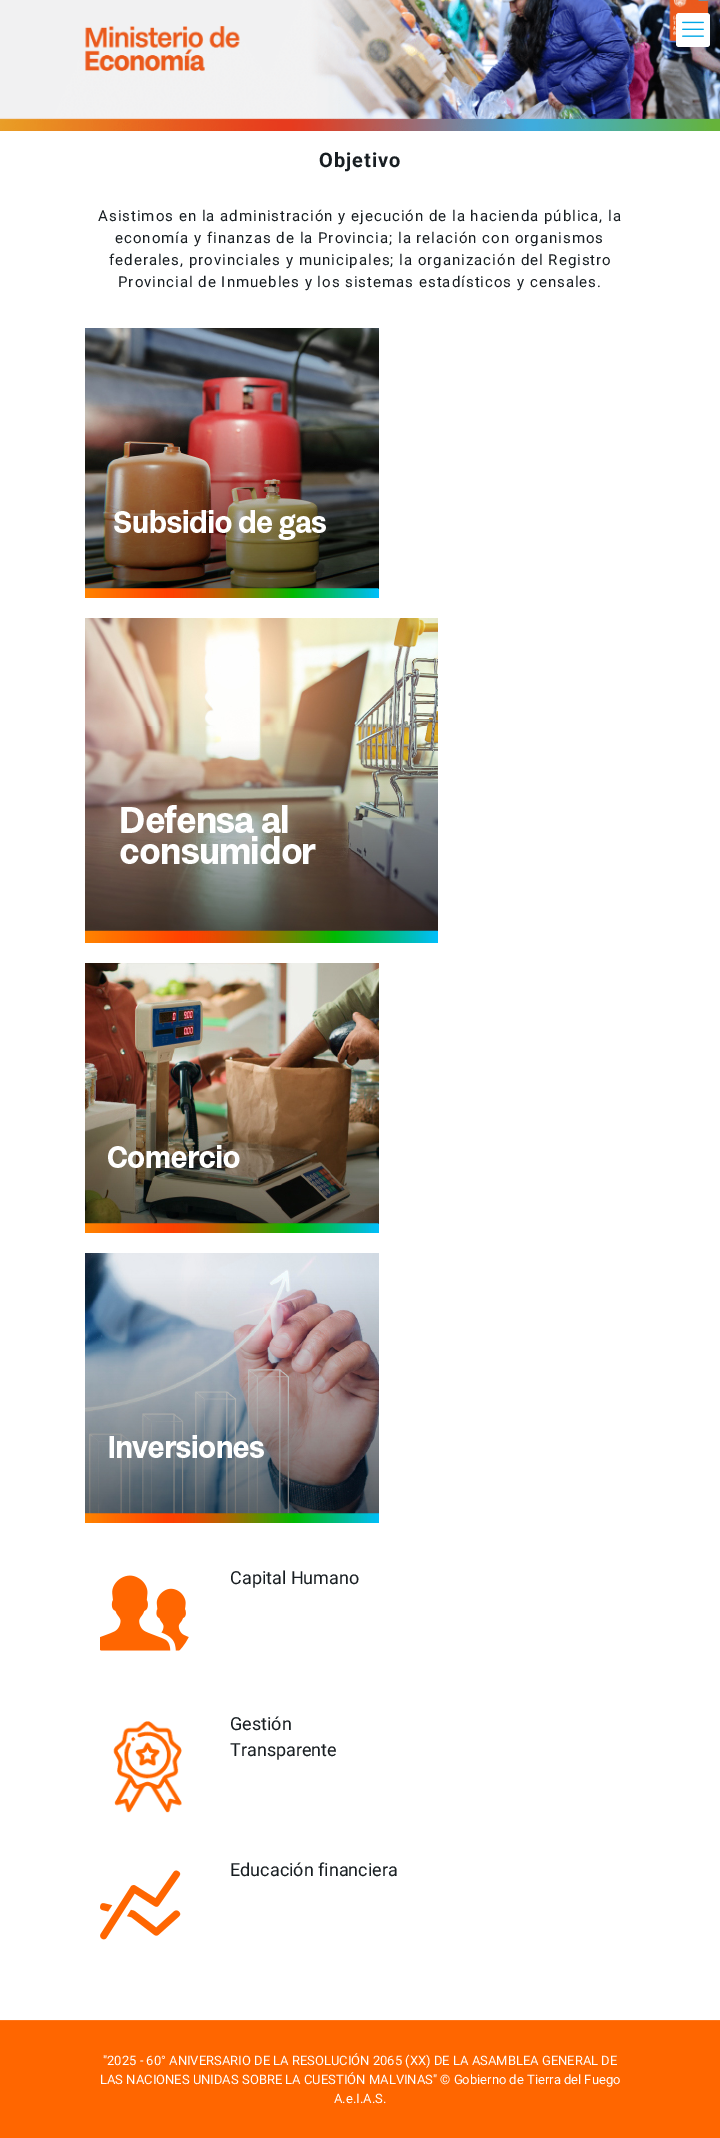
%!PS
<< /PageSize [720 2138] >> setpagedevice
/rgb { dup -16 bitshift 255 div exch dup -8 bitshift 255 and 255 div exch 255 and 255 div setrgbcolor } def
/font { [ exch dup neg 0 0 3 -1 roll 0 0 ] selectfont } def
/text { moveto show } def
/roundrect { 5 dict begin { /r /h /w /y /x } { exch def } forall
  x r add y moveto x w add y 2 copy h add r arct x w add y h add x 1 index r arct
  x y h add x y r arct x y 2 copy exch w add exch r arct closepath end } def
/picture { 5 dict begin { /h /w /y /x /name } { exch def } forall
  gsave x y translate w h scale
  w h 8 [w 0 0 h 0 0] name (r) file false 3 colorimage grestore end } def
0 2138 translate 1 -1 scale
4 setmiterlimit
/s1 { /Roboto-Regular 18 font 16#181E22 rgb } def
/s2 { /Roboto-Regular 13 font 16#FFFFFF rgb } def
16#FFFFFF rgb
0 0 720 2138 rectfill
(pic2.raw) 0 0 720 131 picture
676 13 34 34 3 roundrect fill
(pic1.raw) 682 21 22 16 picture
/Roboto-Bold 20 font
16#181E22 rgb
319 167 moveto 1 0 (Objetivo) ashow
/Roboto-Regular 15 font
98 221 moveto 1 0 (Asistimos en la administración y ejecución de la hacienda pública, la) ashow
115 243 moveto 1 0 (economía y finanzas de la Provincia; la relación con organismos) ashow
109 265 moveto 1 0 (federales, provinciales y municipales; la organización del Registro) ashow
118 287 moveto 1 0 (Provincial de Inmuebles y los sistemas estadísticos y censales.) ashow
(pic3.raw) 85 328 294 270 picture
(pic4.raw) 85 618 353 325 picture
(pic5.raw) 85 963 294 270 picture
(pic6.raw) 85 1253 294 270 picture
(pic7.raw) 100 1575 89 76 picture
s1
(Capital Humano) 230 1584 text
(pic8.raw) 113 1721 69 92 picture
(Gestión) 230 1730 text
(Transparente) 230 1756 text
(pic9.raw) 100 1870 81 70 picture
(Educación financiera) 230 1876 text
16#FF6600 rgb
0 2021 720 117 rectfill
16#FF751A rgb
0 2020 720 1 rectfill
s2
("2025 - 60° ANIVERSARIO DE LA RESOLUCIÓN 2065 \(XX\) DE LA ASAMBLEA GENERAL DE) 103 2065 text
(LAS NACIONES UNIDAS SOBRE LA CUESTIÓN MALVINAS" © Gobierno de Tierra del Fuego) 100 2084 text
(A.e.I.A.S.) 334 2103 text
showpage
